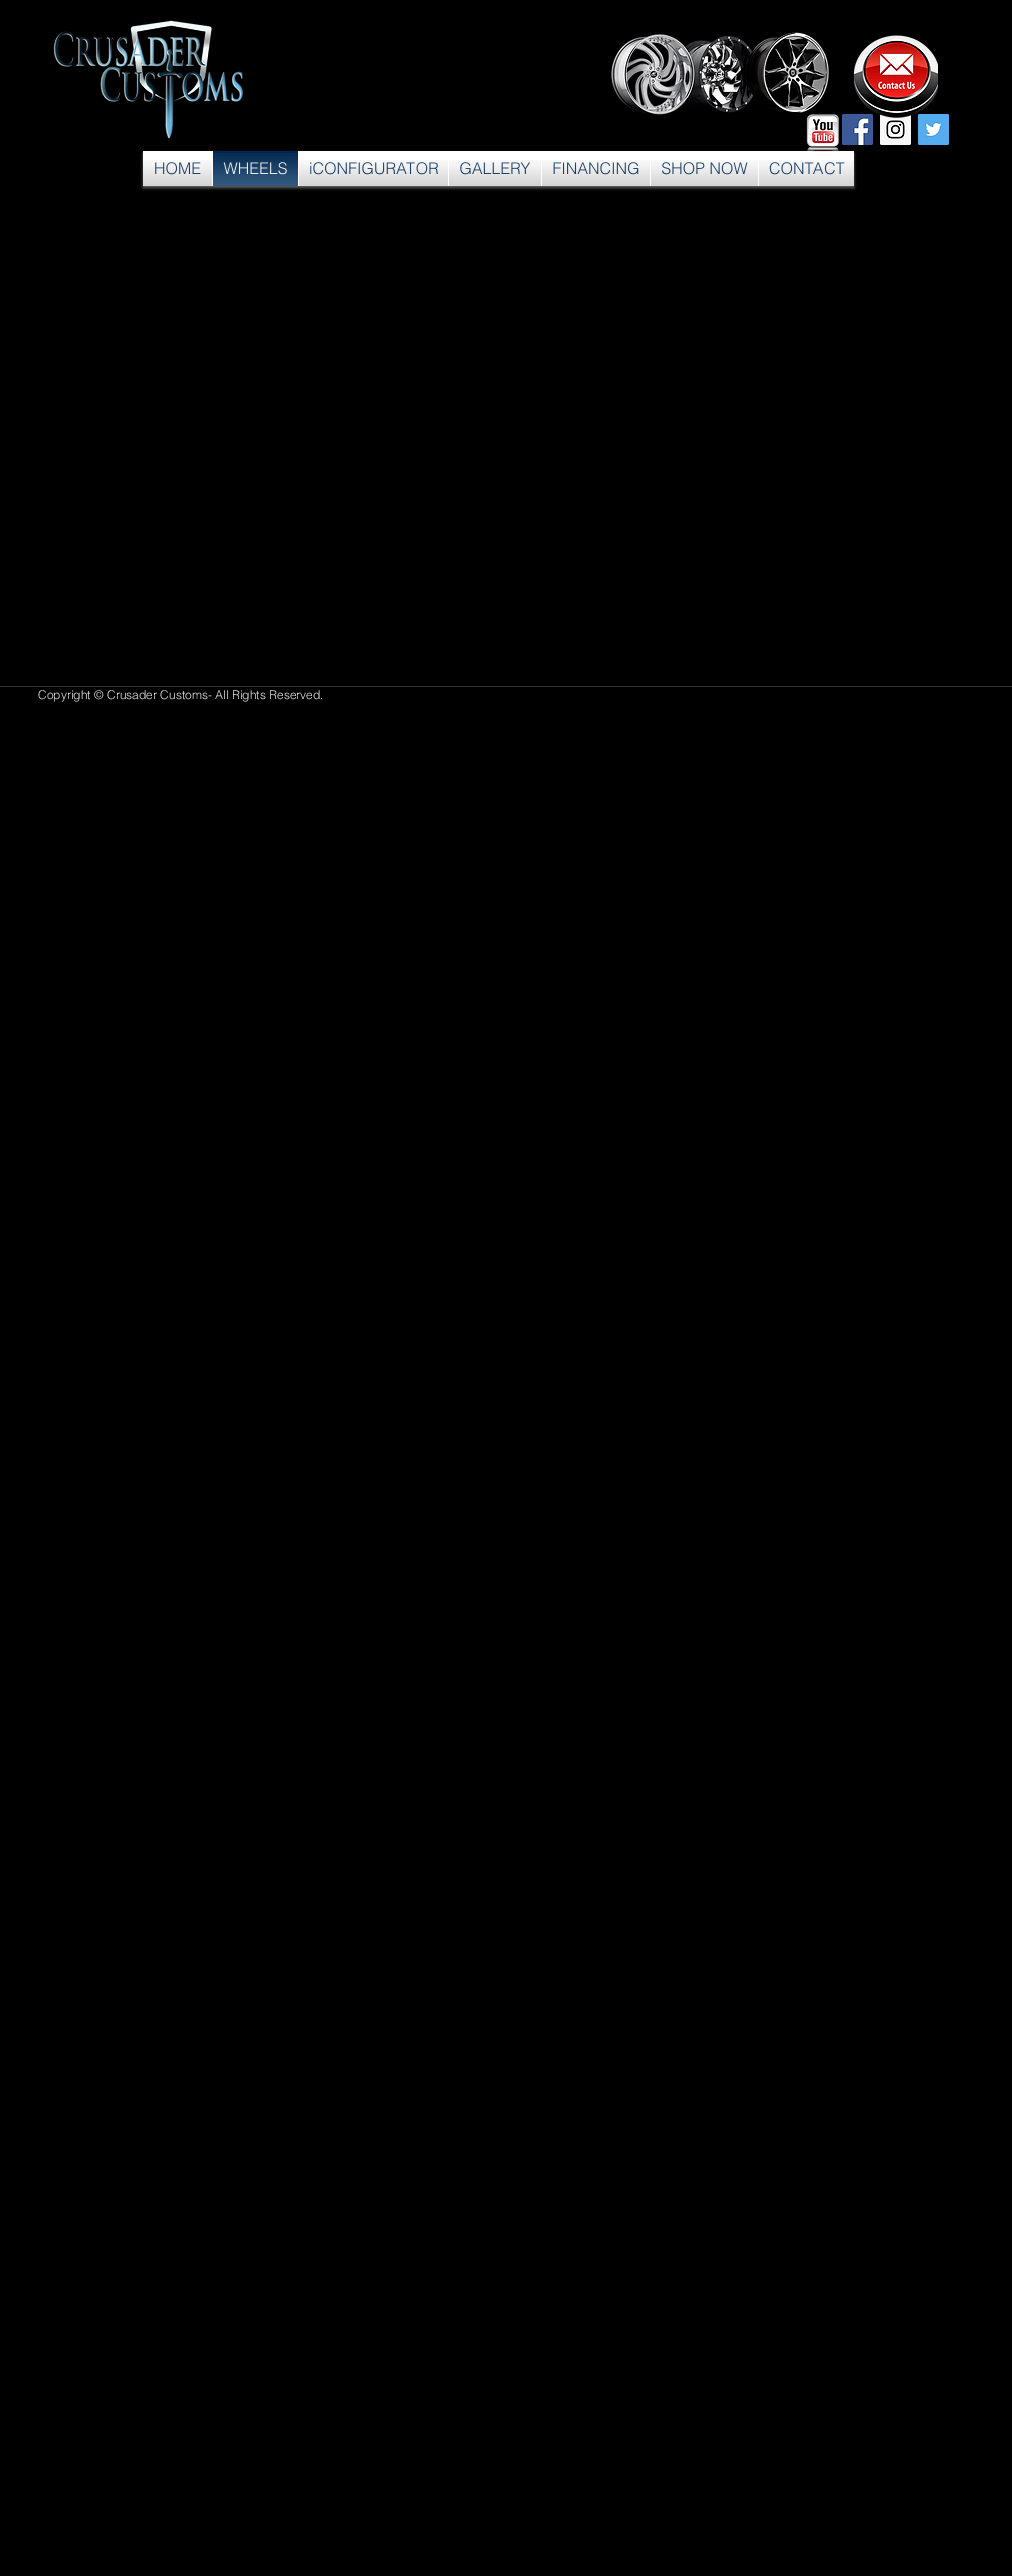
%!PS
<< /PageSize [1012 2576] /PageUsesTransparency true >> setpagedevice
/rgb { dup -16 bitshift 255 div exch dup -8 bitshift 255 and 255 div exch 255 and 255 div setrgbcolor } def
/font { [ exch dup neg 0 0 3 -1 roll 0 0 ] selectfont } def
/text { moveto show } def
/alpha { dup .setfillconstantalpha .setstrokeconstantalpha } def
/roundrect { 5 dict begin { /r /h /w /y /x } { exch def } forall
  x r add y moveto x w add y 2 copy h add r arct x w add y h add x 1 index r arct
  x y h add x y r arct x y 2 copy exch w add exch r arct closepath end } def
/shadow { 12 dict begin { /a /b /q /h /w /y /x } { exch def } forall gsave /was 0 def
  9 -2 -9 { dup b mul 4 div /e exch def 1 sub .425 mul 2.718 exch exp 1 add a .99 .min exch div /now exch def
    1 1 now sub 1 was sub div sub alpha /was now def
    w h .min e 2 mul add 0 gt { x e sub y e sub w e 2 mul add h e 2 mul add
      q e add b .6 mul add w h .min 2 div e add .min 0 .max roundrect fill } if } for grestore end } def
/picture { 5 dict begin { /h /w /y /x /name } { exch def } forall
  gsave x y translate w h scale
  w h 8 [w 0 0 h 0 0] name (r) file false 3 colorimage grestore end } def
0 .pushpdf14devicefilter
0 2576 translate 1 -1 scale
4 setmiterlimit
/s1 { /helvetica-Light 16 font 16#002E5D rgb } def
/s2 { /helvetica-Light 16 font 16#FFFFFF rgb } def
/s3 { /helvetica-Light 12 font 16#E4E4E4 rgb } def
16#000000 rgb
0 0 1012 2576 rectfill
(pic1.raw) 53 20 190 119 picture
(pic2.raw) 611 32 218 83 picture
(pic5.raw) 842 114 31 31 picture
(pic6.raw) 880 114 31 31 picture
(pic7.raw) 918 114 31 31 picture
(pic3.raw) 854 35 84 83 picture
16#A29E9E rgb
143 153 711 35 0 1.5 0.6 shadow
16#FFFFFF rgb
298 151 556 35 rectfill
(pic4.raw) 806 114 33 38 picture
143 151 70 35 rectfill
s1
(HOME) 154 174 text
(pic8.raw) 155 162 46 13 picture
(pic9.raw) 143 160 69 26 picture
213 151 85 35 rectfill
s2
(WHEELS) 223 174 text
(pic10.raw) 213 151 85 24 picture
(pic11.raw) 213 153 85 33 picture
s1
(iCONFIGURATOR) 309 174 text
(pic12.raw) 310 162 128 13 picture
(pic13.raw) 299 160 149 26 picture
(GALLERY) 459 174 text
(pic14.raw) 460 162 70 13 picture
(pic15.raw) 449 160 92 26 picture
(FINANCING) 552 174 text
(pic16.raw) 553 162 86 13 picture
(pic17.raw) 542 160 108 26 picture
(SHOP NOW) 661 174 text
(pic18.raw) 662 162 86 13 picture
(pic19.raw) 651 160 107 26 picture
(CONTACT) 769 174 text
(pic20.raw) 769 162 76 13 picture
(pic21.raw) 759 160 95 26 picture
16#333333 rgb
0 686 1012 1 rectfill
s3
(Copyright © Crusader Customs- All Rights Reserved.) 38 699 text
.poppdf14devicefilter showpage
